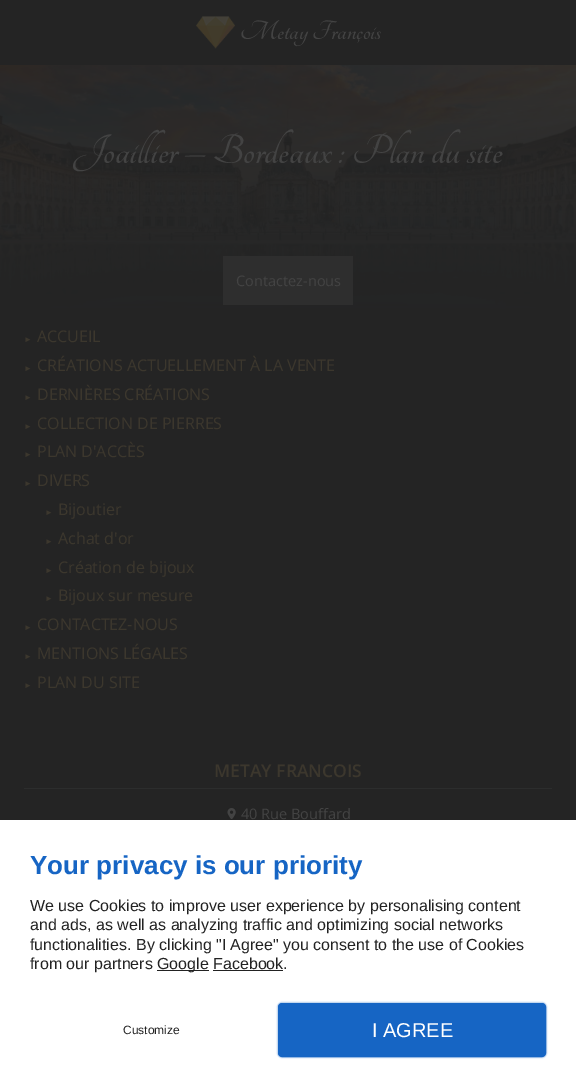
%!PS
<< /PageSize [576 1087] /PageUsesTransparency true >> setpagedevice
/rgb { dup -16 bitshift 255 div exch dup -8 bitshift 255 and 255 div exch 255 and 255 div setrgbcolor } def
/font { [ exch dup neg 0 0 3 -1 roll 0 0 ] selectfont } def
/text { moveto show } def
/alpha { dup .setfillconstantalpha .setstrokeconstantalpha } def
/roundrect { 5 dict begin { /r /h /w /y /x } { exch def } forall
  x r add y moveto x w add y 2 copy h add r arct x w add y h add x 1 index r arct
  x y h add x y r arct x y 2 copy exch w add exch r arct closepath end } def
/shadow { 12 dict begin { /a /b /q /h /w /y /x } { exch def } forall gsave /was 0 def
  9 -2 -9 { dup b mul 4 div /e exch def 1 sub .425 mul 2.718 exch exp 1 add a .99 .min exch div /now exch def
    1 1 now sub 1 was sub div sub alpha /was now def
    w h .min e 2 mul add 0 gt { x e sub y e sub w e 2 mul add h e 2 mul add
      q e add b .6 mul add w h .min 2 div e add .min 0 .max roundrect fill } if } for grestore end } def
/picture { 5 dict begin { /h /w /y /x /name } { exch def } forall
  gsave x y translate w h scale
  w h 8 [w 0 0 h 0 0] name (r) file false 3 colorimage grestore end } def
0 .pushpdf14devicefilter
0 1087 translate 1 -1 scale
4 setmiterlimit
/s1 { /Tangerine-Bold 29 font 16#434343 rgb } def
/s2 { /Tangerine-Bold 44.75 font 16#434343 rgb } def
/s3 { /LiberationSans-Bold 8 font 16#3C372D rgb } def
/s4 { /OpenSans-Regular 16 font 16#3C372D rgb } def
/s5 { /OpenSans-Regular 14.5 font 16#434343 rgb } def
/s6 { /OpenSans-SemiBold 17.5 font 16#3C372D rgb } def
/s7 { /LiberationSans-Bold 26 font 16#1665C4 rgb } def
/s8 { /LiberationSans-Regular 16 font 16#222222 rgb } def
/s9 { /LiberationSans-Regular 12 font 16#222222 rgb } def
/s10 { /LiberationSans-Regular 20 font 16#FFFFFF rgb } def
16#242424 rgb
0 0 576 1087 rectfill
(pic1.raw) 196 16 39 33 picture
s1
(Metay François) 240 39 text
(pic2.raw) 0 65 576 280 picture
s2
(Joaillier – Bordeaux : Plan du site) 73 163 text
s3
(►) 24 342 text
s4
(ACCUEIL) 37 342 text
s3
(►) 24 371 text
s4
(CRÉATIONS ACTUELLEMENT À LA VENTE) 37 371 text
s3
(►) 24 400 text
s4
(DERNIÈRES CRÉATIONS) 37 400 text
s3
(►) 24 429 text
s4
(COLLECTION DE PIERRES) 37 429 text
s3
(►) 24 457 text
s4
(PLAN D'ACCÈS) 37 457 text
s3
(►) 24 486 text
s4
(DIVERS) 37 486 text
s3
(►) 45 515 text
s4
(Bijoutier) 58 515 text
s3
(►) 45 544 text
s4
(Achat d'or) 58 544 text
s3
(►) 45 573 text
s4
(Création de bijoux) 58 573 text
s3
(►) 45 601 text
s4
(Bijoux sur mesure) 58 601 text
s3
(►) 24 630 text
s4
(CONTACTEZ-NOUS) 37 630 text
s3
(►) 24 659 text
s4
(MENTIONS LÉGALES) 37 659 text
s3
(►) 24 688 text
s4
(PLAN DU SITE) 37 688 text
16#2E2E2E rgb
223 256 130 49 rectfill
s5
(Contactez-nous) 236 286 text
16#2C2D2D rgb
24 788 528 1 rectfill
s6
(METAY FRANCOIS) 214 777 text
(pic3.raw) 227 808 9 11 picture
s5
(40 Rue Bouffard) 241 819 text
16#FFFFFF rgb
0 820 576 267 rectfill
s7
(Your privacy is our priority) 30 874 text
s8
(We use Cookies to improve user experience by personalising content) 30 911 text
(and ads, as well as analyzing traffic and optimizing social networks) 30 930 text
(functionalities. By clicking "I Agree" you consent to the use of Cookies) 30 950 text
(from our partners) 30 969 text
157 970 52 1 rectfill
(Google Facebook.) 157 969 text
213 970 70 1 rectfill
s9
(Customize) 123 1034 text
16#1665C4 rgb
277 1002 270 56 5 0.5 0.3 shadow
279 1004 266 52 3 roundrect gsave fill grestore
2 setlinewidth
stroke
s10
(I AGREE) 372 1037 text
.poppdf14devicefilter showpage
